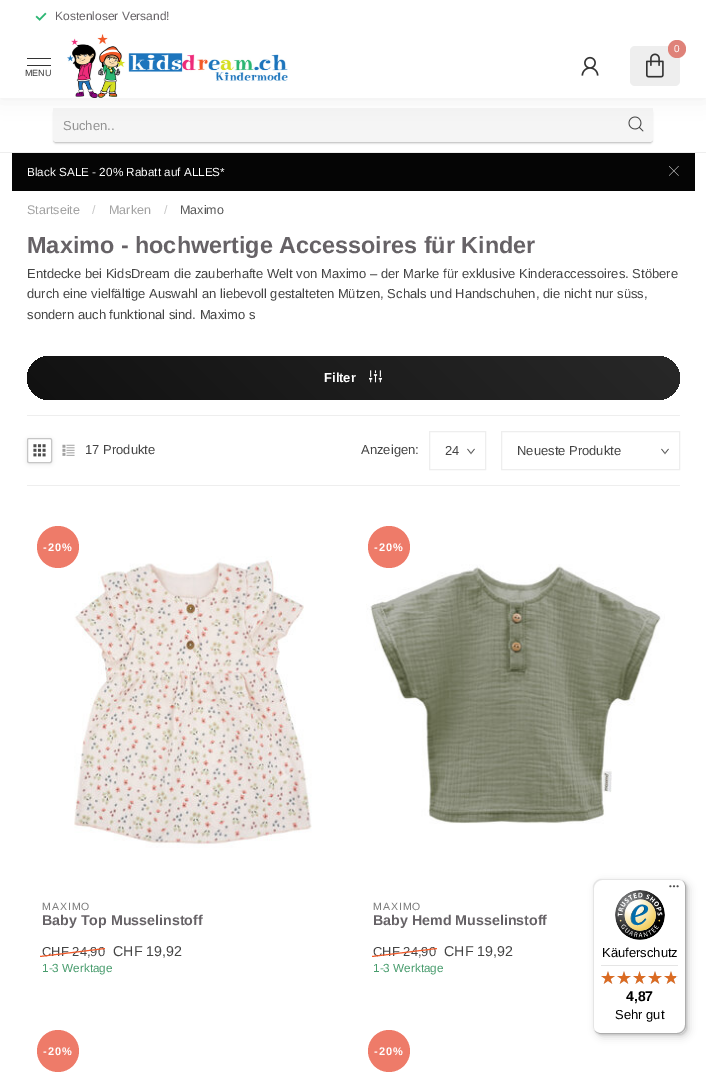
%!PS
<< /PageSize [706 1088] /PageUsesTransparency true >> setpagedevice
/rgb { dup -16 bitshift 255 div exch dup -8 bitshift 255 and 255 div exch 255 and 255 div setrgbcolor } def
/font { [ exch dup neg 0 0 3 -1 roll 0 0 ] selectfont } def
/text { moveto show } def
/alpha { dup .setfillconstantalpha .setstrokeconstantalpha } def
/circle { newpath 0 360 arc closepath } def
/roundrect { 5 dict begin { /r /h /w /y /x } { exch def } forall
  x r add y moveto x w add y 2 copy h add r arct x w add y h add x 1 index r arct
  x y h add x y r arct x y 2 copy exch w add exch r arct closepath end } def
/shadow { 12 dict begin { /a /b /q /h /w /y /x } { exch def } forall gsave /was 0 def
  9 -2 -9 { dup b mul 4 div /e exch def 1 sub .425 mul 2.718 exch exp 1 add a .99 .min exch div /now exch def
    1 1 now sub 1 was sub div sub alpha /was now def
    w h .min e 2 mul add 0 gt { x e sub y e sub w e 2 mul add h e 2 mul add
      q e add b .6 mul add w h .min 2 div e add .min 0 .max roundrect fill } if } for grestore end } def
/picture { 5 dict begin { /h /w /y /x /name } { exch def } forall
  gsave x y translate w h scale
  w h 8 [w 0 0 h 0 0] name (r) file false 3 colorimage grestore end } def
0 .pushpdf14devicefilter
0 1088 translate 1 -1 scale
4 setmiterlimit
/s1 { /LiberationSans-Regular 12 font 16#666266 rgb } def
/s2 { /LiberationSans-Regular 10 font 16#FFFFFF rgb } def
/s3 { /LiberationSans-Regular 9 font 16#333333 rgb } def
/s4 { /LiberationSans-Regular 13 font 16#929292 rgb } def
/s5 { /LiberationSans-Regular 11.75 font 16#FFFFFF rgb } def
/s6 { /LiberationSans-Regular 12.5 font 16#A2A2A2 rgb } def
/s7 { /LiberationSans-Regular 12.5 font 16#C7C7C7 rgb } def
/s8 { /LiberationSans-Regular 12.5 font 16#575757 rgb } def
/s9 { /LiberationSans-Bold 23.4 font 16#666266 rgb } def
/s10 { /LiberationSans-Regular 13 font 16#444444 rgb } def
/s11 { /LiberationSans-Bold 13 font 16#FFFFFF rgb } def
/s12 { /LiberationSans-Bold 14.25 font 16#666266 rgb } def
/s13 { /LiberationSans-Regular 14.25 font 16#444444 rgb } def
/s14 { /LiberationSans-Regular 11.75 font 16#489C6D rgb } def
/s15 { /LiberationSans-Regular 13 font 16#000000 rgb } def
/s16 { /LiberationSans-Bold 14 font 16#000000 rgb } def
16#FFFFFF rgb
0 0 706 1088 rectfill
16#9B9B9B rgb
54 111 598 32 2 1 0.75 shadow
16#FFFFFF rgb
53 108 600 34 3 roundrect fill
0.05 alpha
16#333333 rgb
53 108 600 34 rectfill
1 alpha
(pic5.raw) 628 116 16 16 picture
16#000000 rgb
0 0 706 98 0 10 0.07 shadow
16#FFFFFF rgb
0 0 706 98 rectfill
(pic1.raw) 35 12 12 9 picture
s1
(Kostenloser Versand!) 55 20 text
(pic2.raw) 67 34 221 64 picture
16#EEEEEE rgb
630 46 50 40 5 roundrect fill
16#DF8279 rgb
677 49 9 circle fill
s2
(0) 674 52 text
(pic3.raw) 646 53 18 25 picture
(pic4.raw) 581 56 18 20 picture
16#333333 rgb
27 58 24 1 rectfill
27 65 24 1 rectfill
s3
(MENU) 25 76 text
16#EEEEEE rgb
0 152 706 1 rectfill
s4
(Suchen..) 63 130 text
16#050505 rgb
12 153 683 38 rectfill
s5
(Black SALE - 20% Rabatt auf ALLES*) 27 176 text
(pic6.raw) 669 166 10 10 picture
s6
(Startseite) 27 214 text
s7
(/) 92 214 text
s6
(Marken) 109 214 text
s7
(/) 164 214 text
s8
(Maximo) 180 214 text
s9
(Maximo - hochwertige Accessoires für Kinder) 27 253 text
s10
(Entdecke bei KidsDream die zauberhafte Welt von Maximo – der Marke für exklusive Kinderaccessoires. Stöbere) 27 278 text
(durch eine vielfältige Auswahl an liebevoll gestalteten Mützen, Schals und Handschuhen, die nicht nur süss,) 27 298 text
(sondern auch funktional sind. Maximo s) 27 319 text
gsave 27 356 653 44 22 roundrect clip newpath
<< /ShadingType 2 /ColorSpace /DeviceRGB /Coords [179 552 528 204] /Extend [true true] /Function << /FunctionType 2 /Domain [0 1] /C0 [0.067 0.067 0.067] /C1 [0.157 0.157 0.157] /N 1 >> >> shfill grestore
s11
(Filter) 324 382 text
(pic7.raw) 369 370 13 13 picture
16#EEEEEE rgb
27 415 653 1 rectfill
27 485 653 1 rectfill
gsave
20 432 moveto 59 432 lineto 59 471 lineto 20 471 lineto closepath 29 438 moveto 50 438 lineto 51 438 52 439 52 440 curveto 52 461 lineto 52 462 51 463 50 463 curveto 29 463 lineto 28 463 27 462 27 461 curveto 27 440 lineto 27 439 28 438 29 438 curveto closepath eoclip newpath
16#000000 rgb
27 439 25 25 2 2 0.1 shadow
grestore
16#C6C6C6 rgb
27.5 438.5 24 24 1.5 roundrect stroke
(pic8.raw) 33 444 13 13 picture
(pic9.raw) 62 444 13 12 picture
s10
(17 Produkte) 85 454 text
(Anzeigen:) 361 454 text
16#595959 rgb
0.7 setlinewidth
474.5 449 moveto 471 453.5 lineto 467.5 449 lineto stroke
16#EEEEEE rgb
1 setlinewidth
429.5 431.5 56 38 rectstroke
s10
(24) 445 455 text
16#595959 rgb
0.7 setlinewidth
668.5 449 moveto 665 453.5 lineto 661.5 449 lineto stroke
16#EEEEEE rgb
1 setlinewidth
501.5 431.5 178 38 rectstroke
s10
(Neueste Produkte) 517 455 text
(pic10.raw) 74 556 238 292 picture
16#EE7B69 rgb
58 547 21 circle fill
/LiberationSans-Bold 11 font
16#FFFFFF rgb
43 551 moveto 1 0 (-20%) ashow
/LiberationSans-Regular 10.5 font
16#7C7C7C rgb
42 910 moveto 1 0 (MAXIMO) ashow
s12
(Baby Top Musselinstoff) 42 925 text
s10
(CHF 24,90) 42 956 text
16#F25A29 rgb
40 956 moveto 105 948 lineto 105 949 lineto 40 957 lineto closepath fill
s13
(CHF 19,92) 113 956 text
s14
(1-3 Werktage) 42 972 text
(pic11.raw) 366 564 299 260 picture
16#EE7B69 rgb
389 547 21 circle fill
/LiberationSans-Bold 11 font
16#FFFFFF rgb
374 551 moveto 1 0 (-20%) ashow
/LiberationSans-Regular 10.5 font
16#7C7C7C rgb
373 910 moveto 1 0 (MAXIMO) ashow
s12
(Baby Hemd Musselinstoff) 373 925 text
s10
(CHF 24,90) 373 956 text
16#F25A29 rgb
372 956 moveto 437 948 lineto 437 949 lineto 372 957 lineto closepath fill
s13
(CHF 19,92) 444 956 text
s14
(1-3 Werktage) 373 972 text
16#EE7B69 rgb
58 1051 21 circle fill
/LiberationSans-Bold 11 font
16#FFFFFF rgb
43 1055 moveto 1 0 (-20%) ashow
16#EE7B69 rgb
389 1051 21 circle fill
16#FFFFFF rgb
374 1055 moveto 1 0 (-20%) ashow
16#000000 rgb
596 882 93 155 8 4 0.15 shadow
594 880 93 155 8 1 0.15 shadow
16#FFFFFF rgb
593 879 93 155 8 roundrect fill
16#E5E5E5 rgb
602 880 moveto 679 880 lineto 681 880 683 881 685 883 curveto 683 881 681 879 678 879 curveto 601 879 lineto 597 879 593 883 593 887 curveto 593 1026 lineto 593 1029 595 1031 597 1033 curveto 595 1031 594 1029 594 1027 curveto 594 888 lineto 594 884 598 880 602 880 curveto closepath fill
16#CCCCCC rgb
594 1030 moveto 596 1032 598 1034 601 1034 curveto 678 1034 lineto 682 1034 686 1030 686 1026 curveto 686 887 lineto 686 884 684 882 682 880 curveto 684 882 685 884 685 886 curveto 685 1025 lineto 685 1029 681 1033 677 1033 curveto 600 1033 lineto 598 1033 596 1032 594 1030 curveto closepath fill
0.2 alpha
16#323232 rgb
595 1031 moveto 596 1033 599 1034 601 1034 curveto 678 1034 lineto 682 1034 686 1030 686 1026 curveto 686 887 lineto 686 885 685 882 683 881 curveto 684 882 685 884 685 886 curveto 685 1025 lineto 685 1030 682 1033 677 1033 curveto 600 1033 lineto 598 1033 596 1032 595 1031 curveto closepath fill
1 alpha
(pic12.raw) 669 885 10 3 picture
0.3 alpha
16#FFFFFF rgb
678 1034 moveto 682.5 1034 686 1030.5 686 1026 curveto 686 1030 682 1034 678 1034 curveto closepath fill
1 alpha
(pic13.raw) 615 890 50 50 picture
s15
(Käuferschutz) 602 957 text
16#E5E5E5 rgb
601 965 77 1 rectfill
(pic14.raw) 601 971 14 13 picture
(pic14.raw) 617 971 14 13 picture
(pic15.raw) 633 971 13 13 picture
(pic14.raw) 648 971 14 13 picture
(pic14.raw) 664 971 14 13 picture
(pic16.raw) 601 971 14 13 picture
(pic16.raw) 617 971 14 13 picture
(pic17.raw) 633 971 13 13 picture
(pic16.raw) 648 971 14 13 picture
(pic18.raw) 664 971 12 13 picture
s16
(4,87) 626 1001 text
s15
(Sehr gut) 615 1019 text
.poppdf14devicefilter showpage
